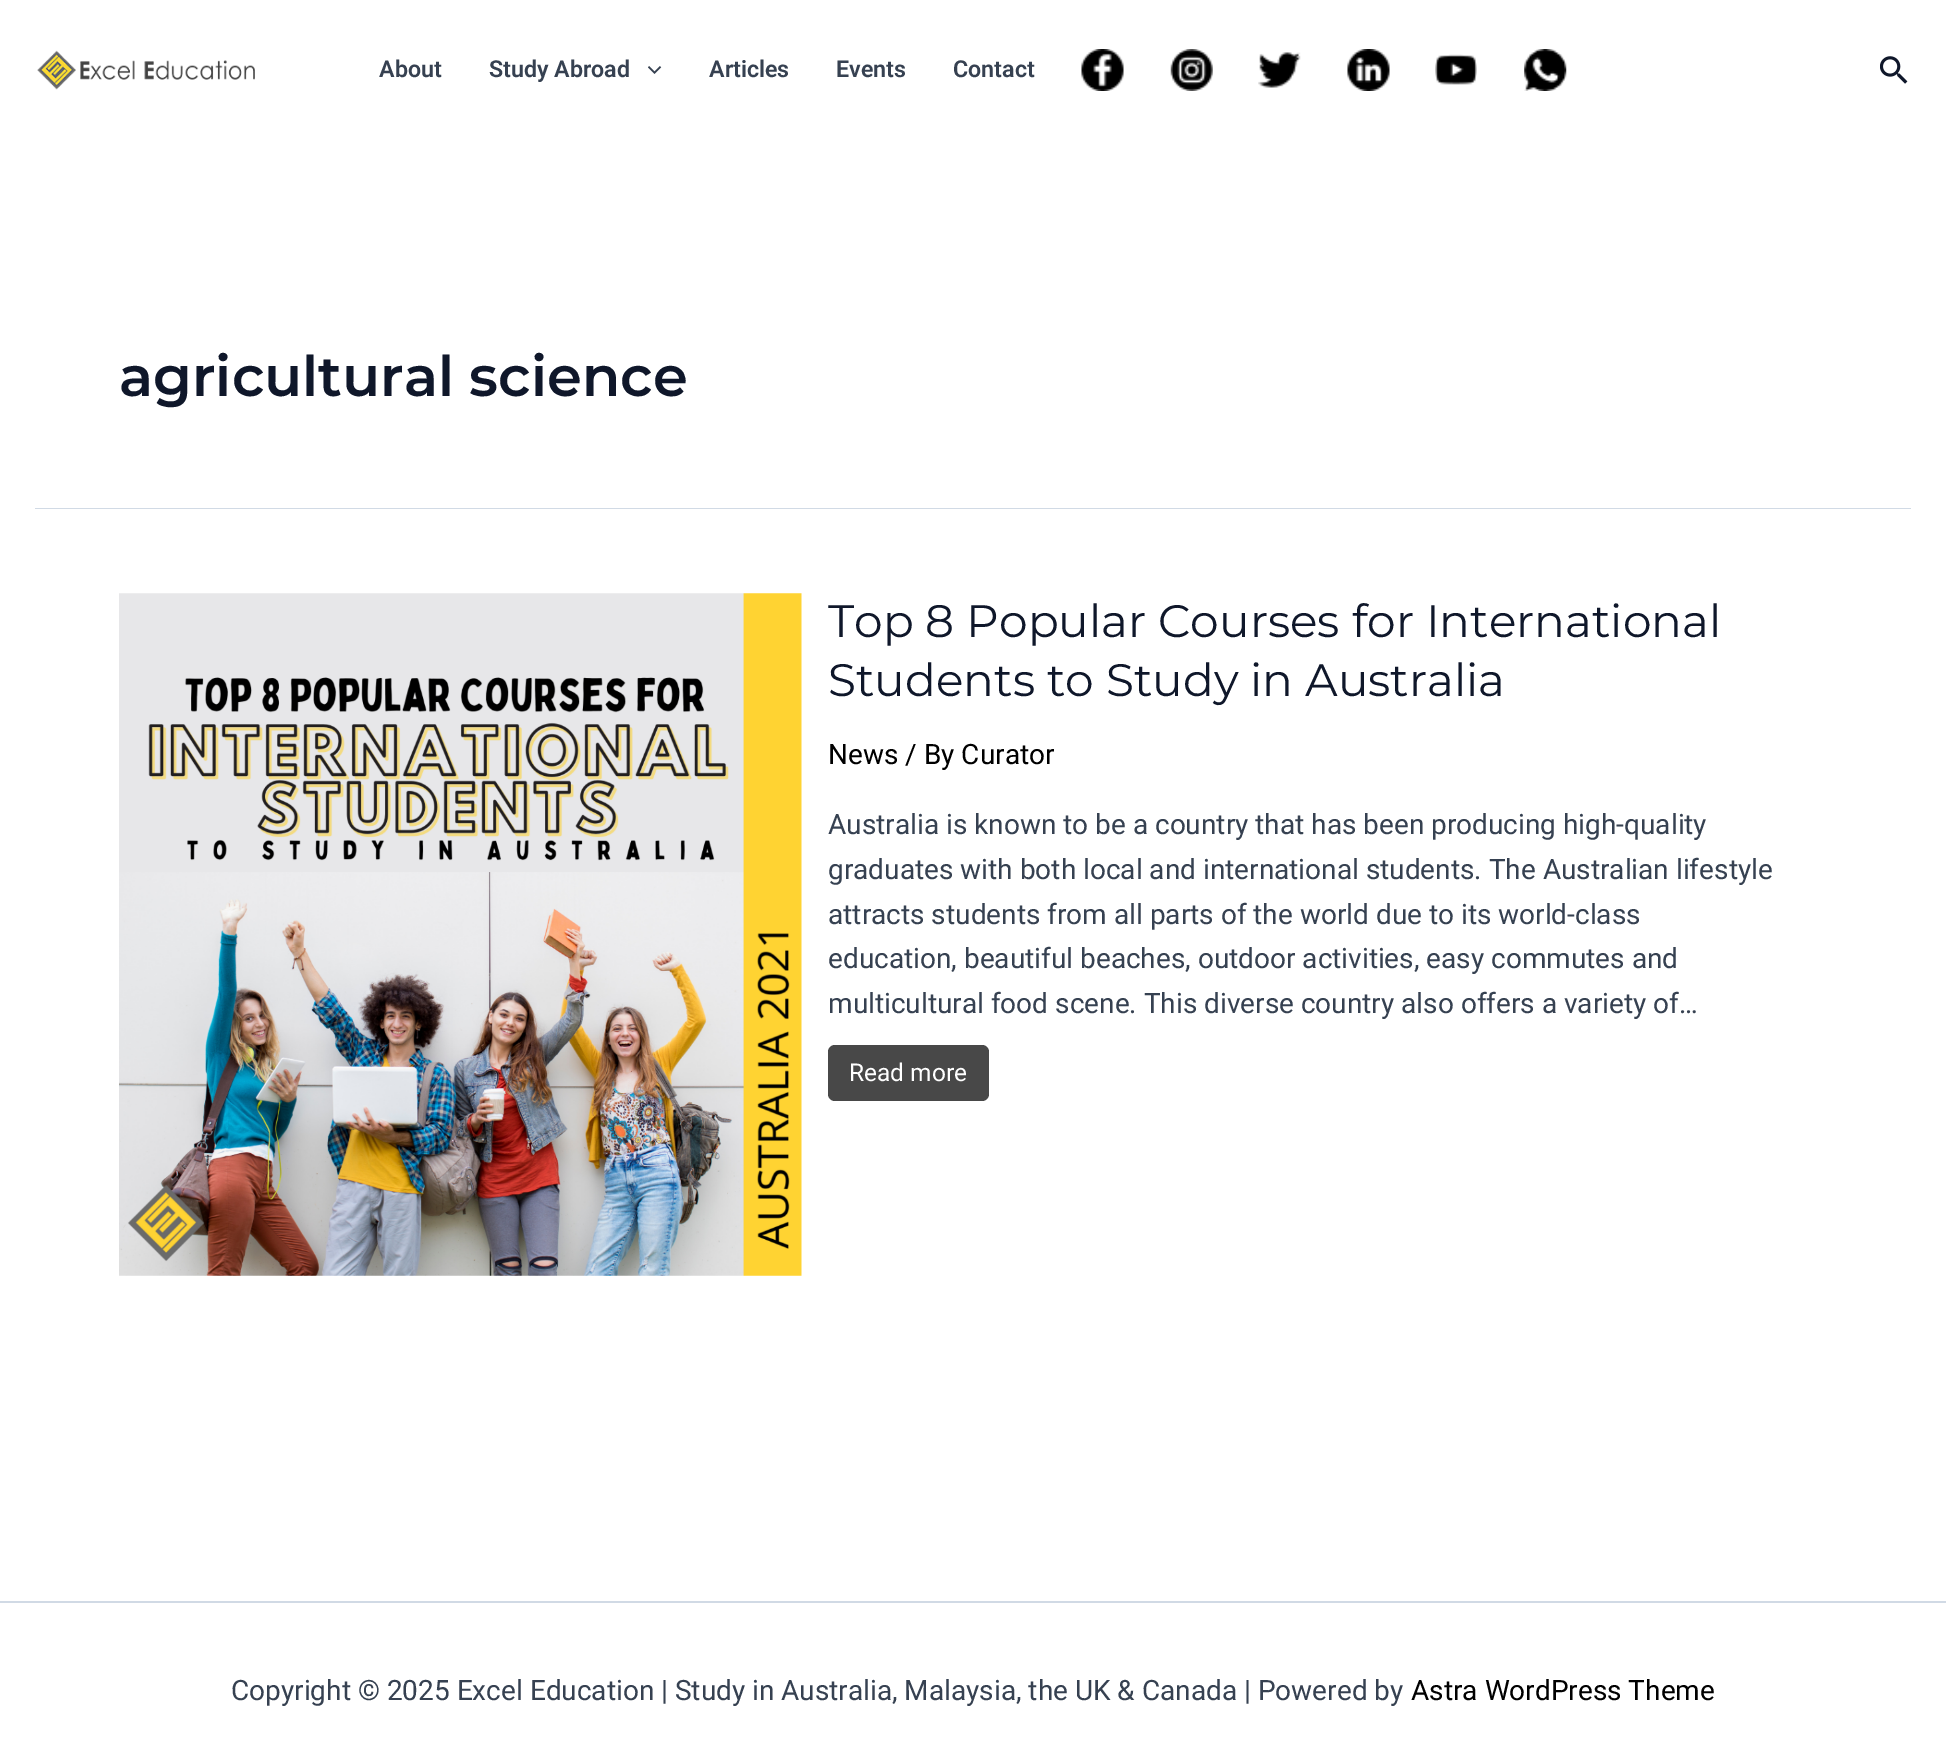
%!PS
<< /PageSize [1946 1763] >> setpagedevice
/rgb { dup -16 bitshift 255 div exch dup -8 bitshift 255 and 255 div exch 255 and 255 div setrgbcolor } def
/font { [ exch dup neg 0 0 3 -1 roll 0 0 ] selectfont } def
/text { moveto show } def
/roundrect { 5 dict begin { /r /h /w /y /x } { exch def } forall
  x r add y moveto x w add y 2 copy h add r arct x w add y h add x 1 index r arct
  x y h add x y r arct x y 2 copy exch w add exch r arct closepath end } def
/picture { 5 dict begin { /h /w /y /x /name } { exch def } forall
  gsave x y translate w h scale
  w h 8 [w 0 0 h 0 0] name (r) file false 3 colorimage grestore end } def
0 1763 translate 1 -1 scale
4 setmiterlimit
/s1 { /Roboto-SemiBold 23.25 font 16#364151 rgb } def
/s2 { /Montserrat-SemiBold 56 font 16#0F172A rgb } def
/s3 { /Montserrat-Regular 45.5 font 16#0F172A rgb } def
/s4 { /Roboto-Regular 28 font 16#000000 rgb } def
/s5 { /Roboto-Regular 28 font 16#364151 rgb } def
/s6 { /Roboto-Regular 24.5 font 16#FFFFFF rgb } def
16#FFFFFF rgb
0 0 1946 1763 rectfill
(pic1.raw) 37 50 218 40 picture
s1
(About) 379 77 text
(Study Abroad) 489 77 text
(pic2.raw) 648 66 14 8 picture
(Articles) 709 77 text
(Events) 836 77 text
(Contact) 953 77 text
(pic3.raw) 1081 49 43 42 picture
(pic4.raw) 1170 49 43 42 picture
(pic5.raw) 1258 52 43 36 picture
(pic6.raw) 1347 49 43 42 picture
(pic7.raw) 1435 54 42 31 picture
(pic8.raw) 1524 49 43 42 picture
(pic9.raw) 1880 56 28 28 picture
16#D1DAE5 rgb
35 508 1876 1 rectfill
s2
(agricultural science) 119 396 text
(pic10.raw) 119 593 683 683 picture
s3
(Top 8 Popular Courses for International) 828 637 text
(Students to Study in Australia) 828 696 text
s4
(News / By Curator) 828 764 text
s5
(Australia is known to be a country that has been producing high-quality) 828 834 text
(graduates with both local and international students. The Australian lifestyle) 828 879 text
(attracts students from all parts of the world due to its world-class) 828 924 text
(education, beautiful beaches, outdoor activities, easy commutes and) 828 968 text
(multicultural food scene. This diverse country also offers a variety of…) 828 1013 text
16#484848 rgb
828 1045 161 56 7 roundrect fill
s6
(Read more) 849 1081 text
16#D1DAE5 rgb
0 1601 1946 2 rectfill
s5
(Copyright © 2025 Excel Education | Study in Australia, Malaysia, the UK & Canada | Powered by) 231 1700 text
s4
(Astra WordPress Theme) 1411 1700 text
showpage
